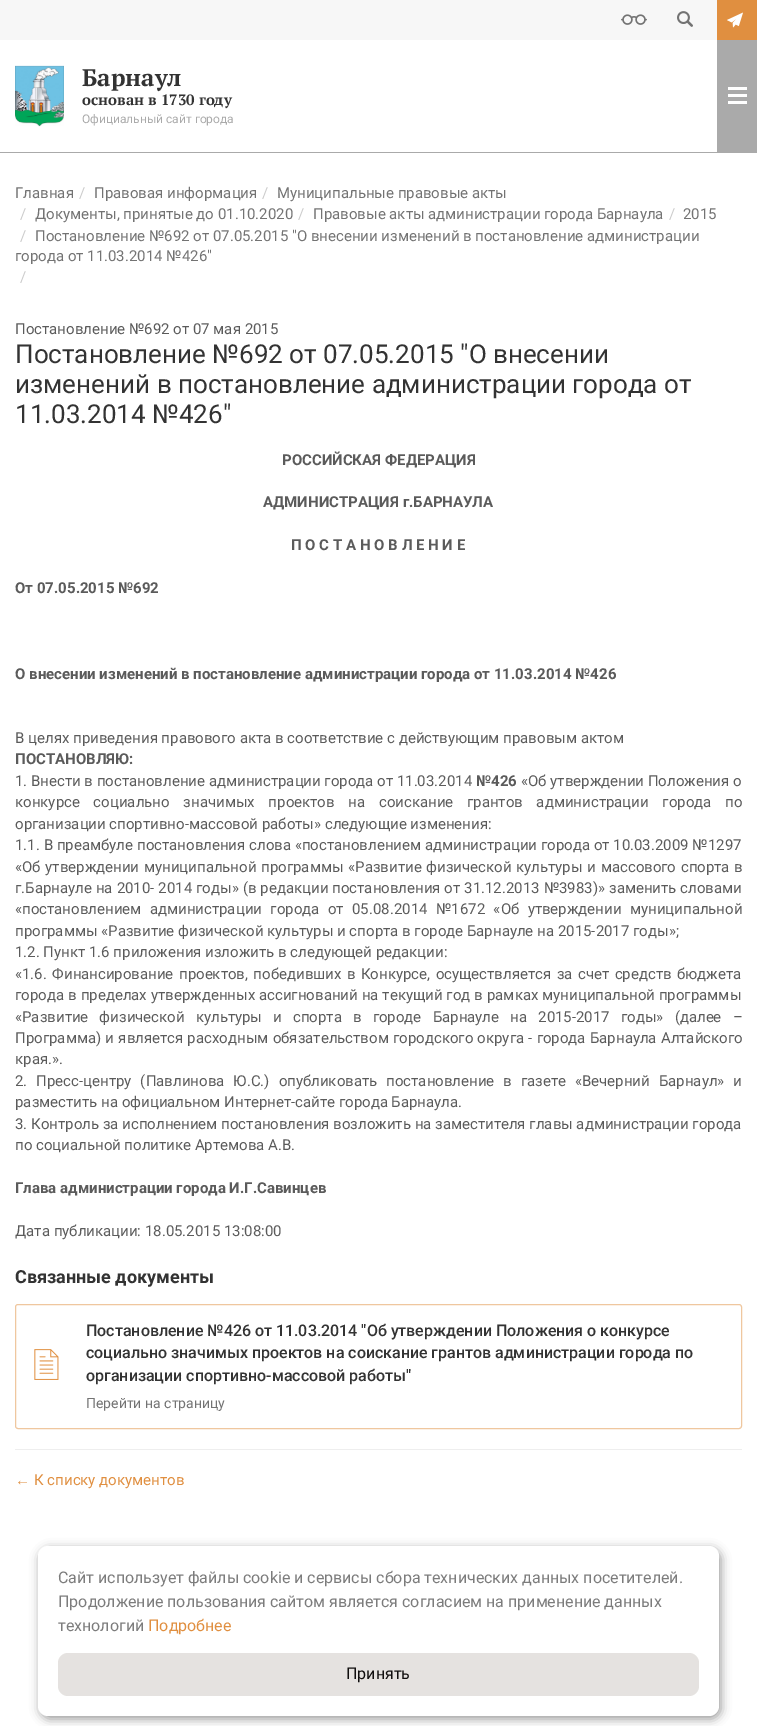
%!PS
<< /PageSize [757 1726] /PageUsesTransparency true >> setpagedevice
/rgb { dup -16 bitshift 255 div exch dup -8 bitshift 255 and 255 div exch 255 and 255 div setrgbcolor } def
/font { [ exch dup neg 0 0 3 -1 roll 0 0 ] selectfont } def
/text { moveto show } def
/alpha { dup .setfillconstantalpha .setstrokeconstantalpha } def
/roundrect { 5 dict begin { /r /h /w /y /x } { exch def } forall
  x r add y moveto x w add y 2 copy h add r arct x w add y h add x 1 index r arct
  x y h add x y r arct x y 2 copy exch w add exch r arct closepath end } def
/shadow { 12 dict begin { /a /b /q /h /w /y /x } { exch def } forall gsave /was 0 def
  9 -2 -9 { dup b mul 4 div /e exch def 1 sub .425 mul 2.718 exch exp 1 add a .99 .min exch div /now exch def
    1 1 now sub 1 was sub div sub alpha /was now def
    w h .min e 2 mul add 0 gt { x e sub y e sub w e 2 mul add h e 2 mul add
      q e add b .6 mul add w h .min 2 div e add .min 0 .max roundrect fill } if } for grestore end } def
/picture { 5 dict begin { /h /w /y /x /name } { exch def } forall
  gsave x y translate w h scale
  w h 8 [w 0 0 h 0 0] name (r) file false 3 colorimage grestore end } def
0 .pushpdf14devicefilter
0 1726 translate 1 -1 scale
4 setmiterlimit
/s1 { /PTSerif-Bold 24 font 16#333333 rgb } def
/s2 { /PTSerif-Bold 15 font 16#333333 rgb } def
/s3 { /Roboto-Regular 12 font 16#AAAAAA rgb } def
/s4 { /Roboto-Regular 15 font 16#737373 rgb } def
/s5 { /Roboto-Regular 15 font 16#CCCCCC rgb } def
/s6 { /Roboto-Regular 15 font 16#5B5B5B rgb } def
/s7 { /Roboto-Regular 26 font 16#333333 rgb } def
/s8 { /Roboto-Bold 15 font 16#5B5B5B rgb } def
/s9 { /Roboto-Bold 18 font 16#333333 rgb } def
/s10 { /Roboto-Medium 16 font 16#333333 rgb } def
/s11 { /Roboto-Regular 14 font 16#737373 rgb } def
/s12 { /LiberationSans-Regular 15 font 16#E08F40 rgb } def
/s13 { /Roboto-Regular 15 font 16#E08F40 rgb } def
/s14 { /Roboto-Regular 16 font 16#7C7C7C rgb } def
/s15 { /Roboto-Regular 16 font 16#E08F40 rgb } def
/s16 { /Roboto-Regular 16 font 16#100E0E rgb } def
16#FFFFFF rgb
0 0 757 1726 rectfill
16#F7F7F7 rgb
0 0 717 40 rectfill
(pic1.raw) 621 14 26 11 picture
(pic2.raw) 677 11 16 16 picture
16#E08F40 rgb
717 0 40 40 rectfill
(pic3.raw) 727 12 16 16 picture
16#AAAAAA rgb
0 152 757 1 rectfill
(pic4.raw) 15 65 49 62 picture
s1
(Барнаул) 82 86 text
s2
(основан в 1730 году) 82 105 text
s3
(Официальный сайт города) 82 123 text
717 40 40 112 rectfill
16#FFFFFF rgb
728 87 19 3 rectfill
728 94 19 3 rectfill
728 101 19 3 rectfill
s4
(Главная) 15 198 text
s5
(/) 79 198 text
s4
(Правовая информация) 94 198 text
s5
(/) 262 198 text
s4
(Муниципальные правовые акты) 277 198 text
s5
(/) 20 219 text
s4
(Документы, принятые до 01.10.2020) 35 219 text
s5
(/) 298 219 text
s4
(Правовые акты администрации города Барнаула) 313 219 text
s5
(/) 669 219 text
s4
(2015) 683 219 text
s5
(/) 20 241 text
s4
(Постановление №692 от 07.05.2015 "О внесении изменений в постановление администрации) 35 241 text
(города от 11.03.2014 №426") 15 261 text
s5
(/) 20 282 text
s6
(Постановление №692 от 07 мая 2015) 15 334 text
s7
(Постановление №692 от 07.05.2015 "О внесении) 15 363 text
(изменений в постановление администрации города от) 15 393 text
(11.03.2014 №426") 15 423 text
s8
(РОССИЙСКАЯ ФЕДЕРАЦИЯ) 282 465 text
(АДМИНИСТРАЦИЯ г.БАРНАУЛА) 263 507 text
(П О С Т А Н О В Л Е Н И Е) 291 550 text
(От 07.05.2015 №692) 15 593 text
(О внесении изменений в постановление администрации города от 11.03.2014 №426) 15 679 text
s6
(В целях приведения правового акта в соответствие с действующим правовым актом) 15 743 text
s8
(ПОСТАНОВЛЯЮ:) 15 764 text
s6
(1. Внести в постановление администрации города от 11.03.2014) 15 786 text
s8
(№426) 476 786 text
s6
(«Об утверждении Положения о) 521 786 text
15 807 moveto 10 0 32 (конкурсе социально значимых проектов на соискание грантов администрации города по) widthshow
(организации спортивно-массовой работы» следующие изменения:) 15 829 text
15 850 moveto 0.1 0 32 (1.1. В преамбуле постановления слова «постановлением администрации города от 10.03.2009 №1297) widthshow
15 872 moveto 1 0 32 («Об утверждении муниципальной программы «Развитие физической культуры и массового спорта в) widthshow
15 893 moveto 0.25 0 32 (г.Барнауле на 2010- 2014 годы» \(в редакции постановления от 31.12.2013 №3983\)» заменить словами) widthshow
15 914 moveto 4.75 0 32 («постановлением администрации города от 05.08.2014 №1672 «Об утверждении муниципальной) widthshow
(программы «Развитие физической культуры и спорта в городе Барнауле на 2015-2017 годы»;) 15 936 text
(1.2. Пункт 1.6 приложения изложить в следующей редакции:) 15 957 text
15 979 moveto 1.75 0 32 («1.6. Финансирование проектов, победивших в Конкурсе, осуществляется за счет средств бюджета) widthshow
15 1000 moveto 0.25 0 32 (города в пределах утвержденных ассигнований на текущий год в рамках муниципальной программы) widthshow
15 1022 moveto 7.4 0 32 («Развитие физической культуры и спорта в городе Барнауле на 2015-2017 годы» \(далее –) widthshow
15 1043 moveto 0.5 0 32 (Программа\) и является расходным обязательством городского округа - города Барнаула Алтайского) widthshow
(края.».) 15 1064 text
15 1086 moveto 5.25 0 32 (2. Пресс-центру \(Павлинова Ю.С.\) опубликовать постановление в газете «Вечерний Барнаул» и) widthshow
(разместить на официальном Интернет-сайте города Барнаула.) 15 1107 text
(3. Контроль за исполнением постановления возложить на заместителя главы администрации города) 15 1129 text
(по социальной политике Артемова А.В.) 15 1150 text
s8
(Глава администрации города И.Г.Савинцев) 15 1193 text
s6
(Дата публикации: 18.05.2015 13:08:00) 15 1236 text
s9
(Связанные документы) 15 1283 text
16#EFC79F rgb
15.5 1304.5 726 124 2.5 roundrect stroke
(pic5.raw) 34 1349 25 31 picture
s10
(Постановление №426 от 11.03.2014 "Об утверждении Положения о конкурсе) 86 1336 text
(социально значимых проектов на соискание грантов администрации города по) 86 1358 text
(организации спортивно-массовой работы") 86 1381 text
s11
(Перейти на страницу) 86 1408 text
16#EEEEEE rgb
15 1449 727 1 rectfill
s12
(←) 15 1485 text
s13
(К списку документов) 34 1485 text
16#000000 rgb
40 1549 681 170 10 5 0.4 shadow
16#FFFFFF rgb
38 1546 681 170 10 roundrect fill
s14
(Сайт использует файлы cookie и сервисы сбора технических данных посетителей.) 58 1583 text
(Продолжение пользования сайтом является согласием на применение данных) 58 1607 text
(технологий) 58 1631 text
s15
(Подробнее) 148 1631 text
16#E5E2E0 rgb
58 1653 641 43 10 roundrect fill
s16
(Принять) 346 1679 text
.poppdf14devicefilter showpage
